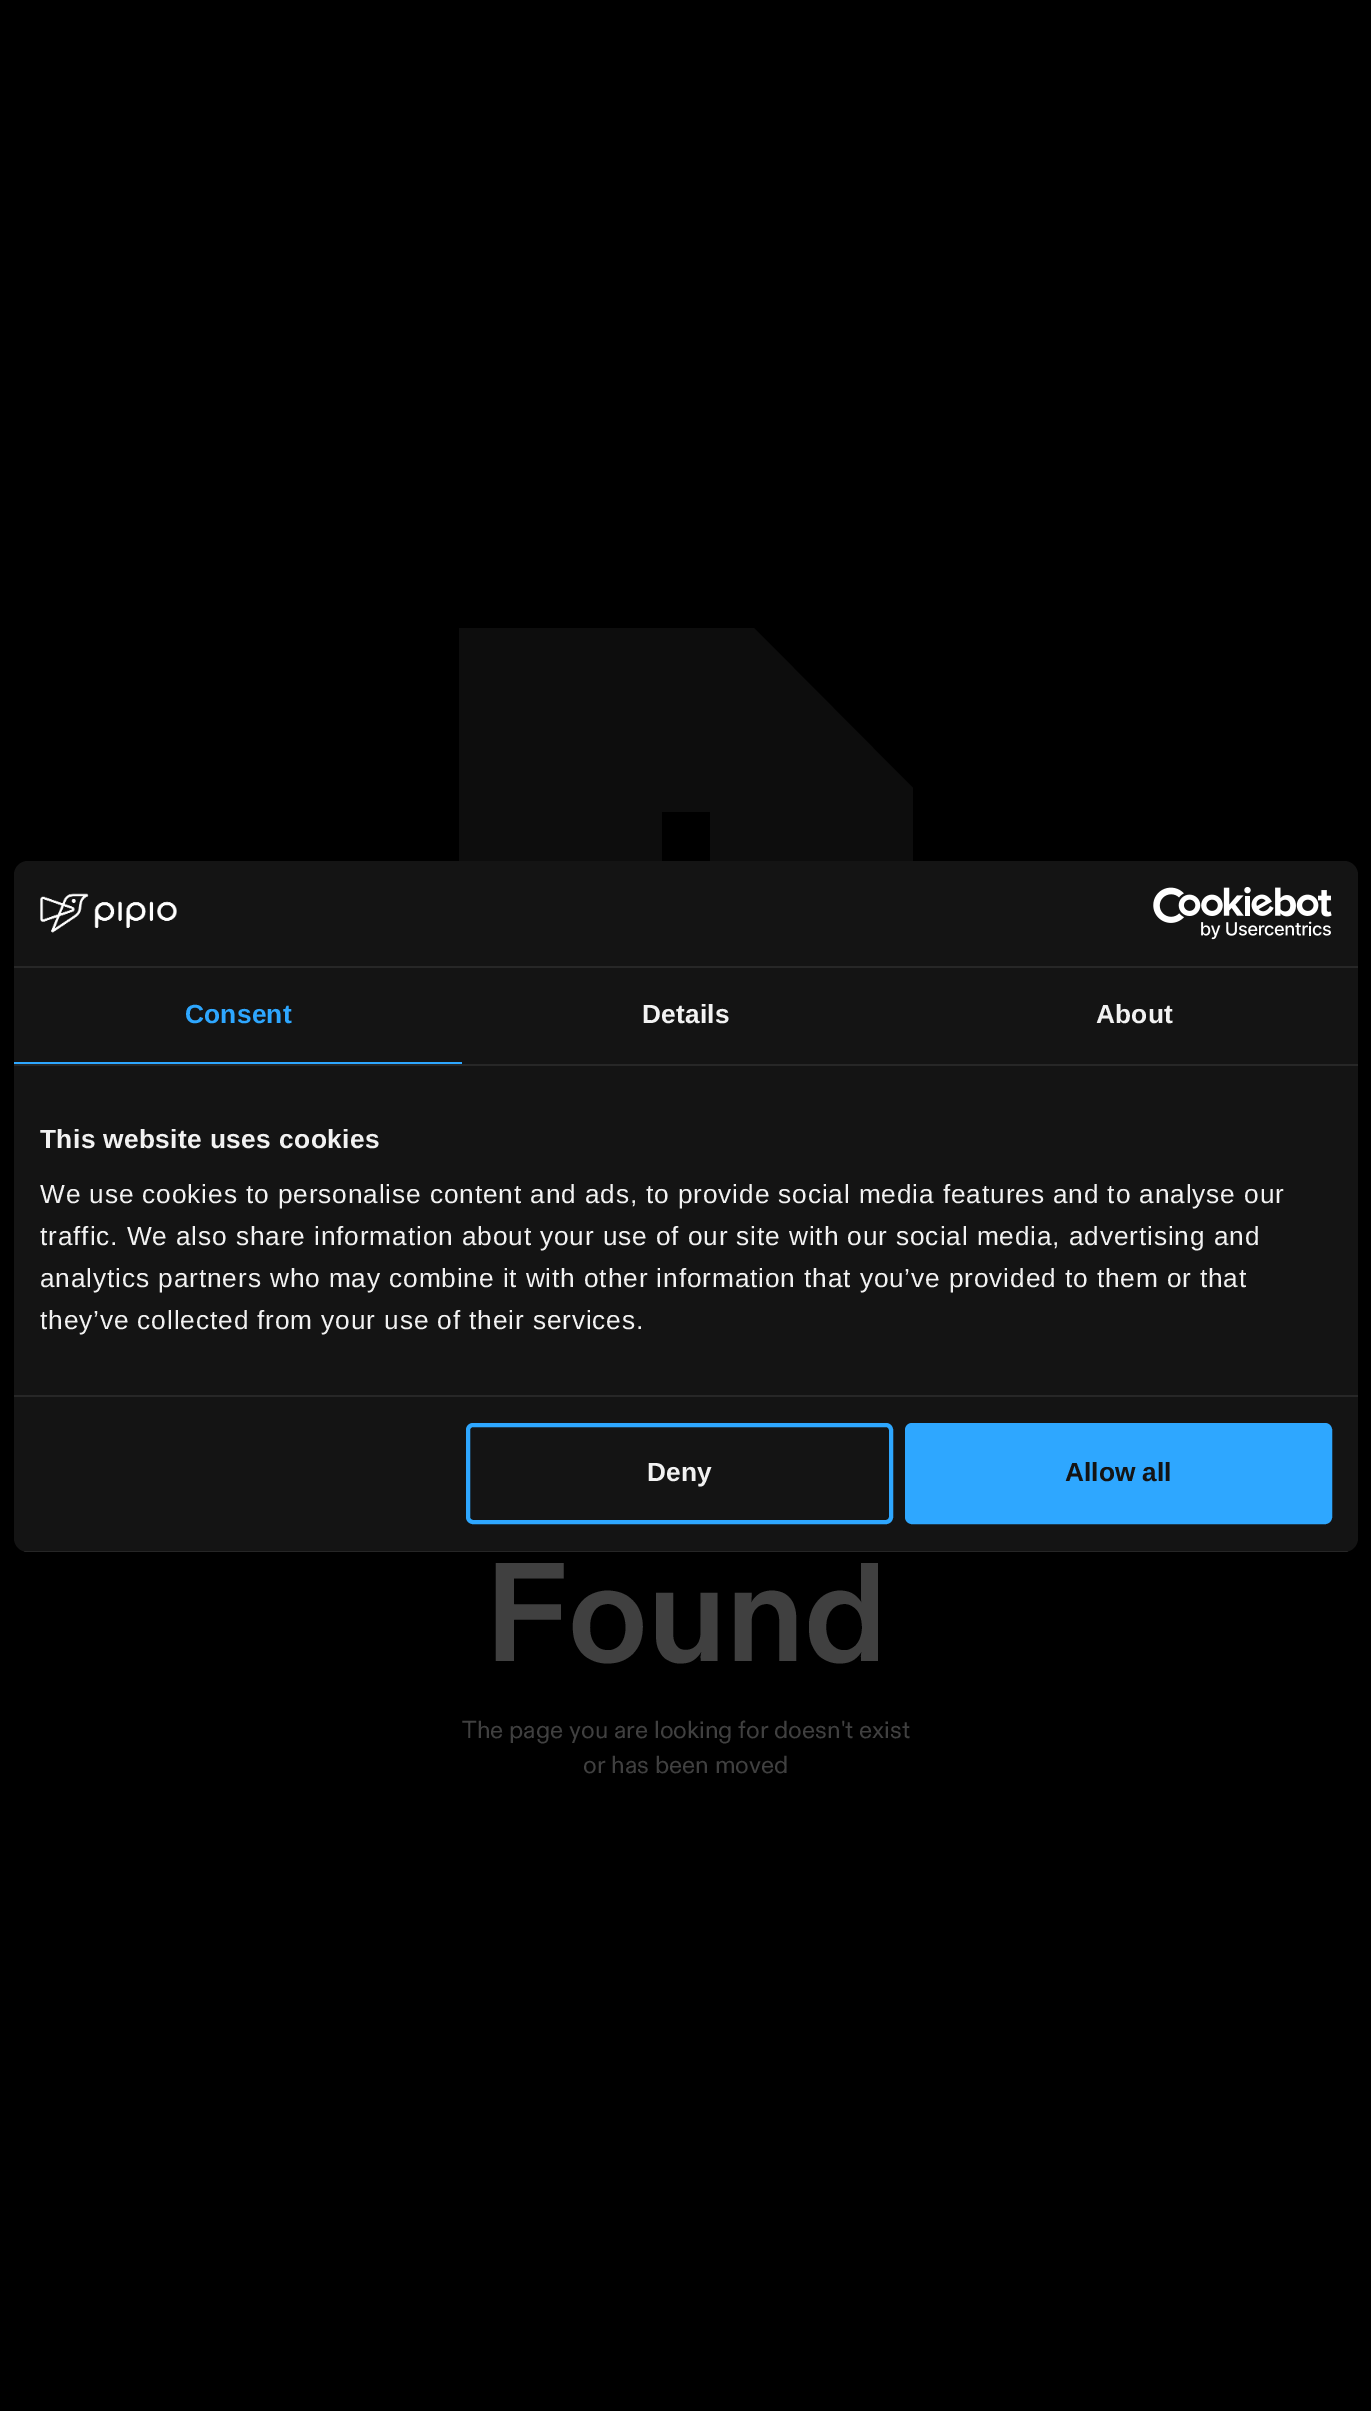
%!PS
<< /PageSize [1371 2411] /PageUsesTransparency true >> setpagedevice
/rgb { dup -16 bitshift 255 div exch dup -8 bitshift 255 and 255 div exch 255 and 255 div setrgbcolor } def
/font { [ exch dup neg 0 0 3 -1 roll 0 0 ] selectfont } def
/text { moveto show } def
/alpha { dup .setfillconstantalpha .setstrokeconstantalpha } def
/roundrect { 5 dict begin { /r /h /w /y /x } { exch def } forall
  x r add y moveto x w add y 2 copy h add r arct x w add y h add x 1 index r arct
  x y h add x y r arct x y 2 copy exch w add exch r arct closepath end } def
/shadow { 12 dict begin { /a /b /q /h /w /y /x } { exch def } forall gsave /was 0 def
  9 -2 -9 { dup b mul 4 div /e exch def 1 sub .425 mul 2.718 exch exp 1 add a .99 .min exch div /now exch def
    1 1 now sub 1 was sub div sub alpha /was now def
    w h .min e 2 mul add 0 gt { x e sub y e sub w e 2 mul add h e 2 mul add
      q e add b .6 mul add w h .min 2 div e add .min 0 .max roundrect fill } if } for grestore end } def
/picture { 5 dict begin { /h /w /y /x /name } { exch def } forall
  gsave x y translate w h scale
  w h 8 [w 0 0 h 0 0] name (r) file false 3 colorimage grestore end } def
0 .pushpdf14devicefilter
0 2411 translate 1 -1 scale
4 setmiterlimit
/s1 { /LiberationSans-Bold 26.25 font 16#F2F2F2 rgb } def
/s2 { /LiberationSans-Bold 26.25 font 16#141414 rgb } def
/s3 { /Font-Bold 140 font 16#404040 rgb } def
/s4 { /Font-Regular 24.5 font 16#404040 rgb } def
16#000000 rgb
0 0 1371 2411 rectfill
16#0D0D0D rgb
459 628 moveto 754 628 lineto 913 788 lineto 913 1199 lineto 459 1199 lineto closepath 662 812 moveto 710 812 lineto 710 957 lineto 662 957 lineto closepath 662 1006 moveto 710 1006 lineto 710 1054 lineto 662 1054 lineto closepath eofill
16#000000 rgb
14 917 1344 691 14 59.5 0.3 shadow
16#141414 rgb
14 861 1344 691 14 roundrect fill
16#272727 rgb
14 966 1344 2 rectfill
(pic1.raw) 40 893 137 40 picture
(pic2.raw) 1153 887 179 53 picture
14 1064 1344 2 rectfill
16#2EA7FF rgb
14 1062 448 2 rectfill
/LiberationSans-Bold 26.25 font
185 1023 moveto 0.25 0 (Consent) ashow
16#F2F2F2 rgb
642 1023 moveto 0.25 0 (Details) ashow
1096 1023 moveto 0.25 0 (About) ashow
16#272727 rgb
14 1395 1344 2 rectfill
16#F2F2F2 rgb
40 1148 moveto 0.4 0 (This website uses cookies) ashow
/LiberationSans-Regular 26.25 font
40 1203 moveto 0.88 0 (We use cookies to personalise content and ads, to provide social media features and to analyse our) ashow
40 1245 moveto 0.88 0 (traffic. We also share information about your use of our site with our social media, advertising and) ashow
40 1287 moveto 0.88 0 (analytics partners who may combine it with other information that you’ve provided to them or that) ashow
40 1329 moveto 0.88 0 (they’ve collected from your use of their services.) ashow
gsave
14 861 1344 691 14 roundrect clip newpath
0.08 alpha
16#FFFFFF rgb
24 1551 1324 1 rectfill
grestore
16#2EA7FF rgb
4 setlinewidth
468 1425 423 97 5 roundrect stroke
s1
(Deny) 647 1481 text
16#2EA7FF rgb
907 1425 423 97 5 roundrect gsave fill grestore
stroke
s2
(Allow all) 1065 1481 text
s3
(Found) 485 1661 text
s4
(The page you are looking for doesn't exist) 462 1738 text
(or has been moved) 583 1773 text
.poppdf14devicefilter showpage
